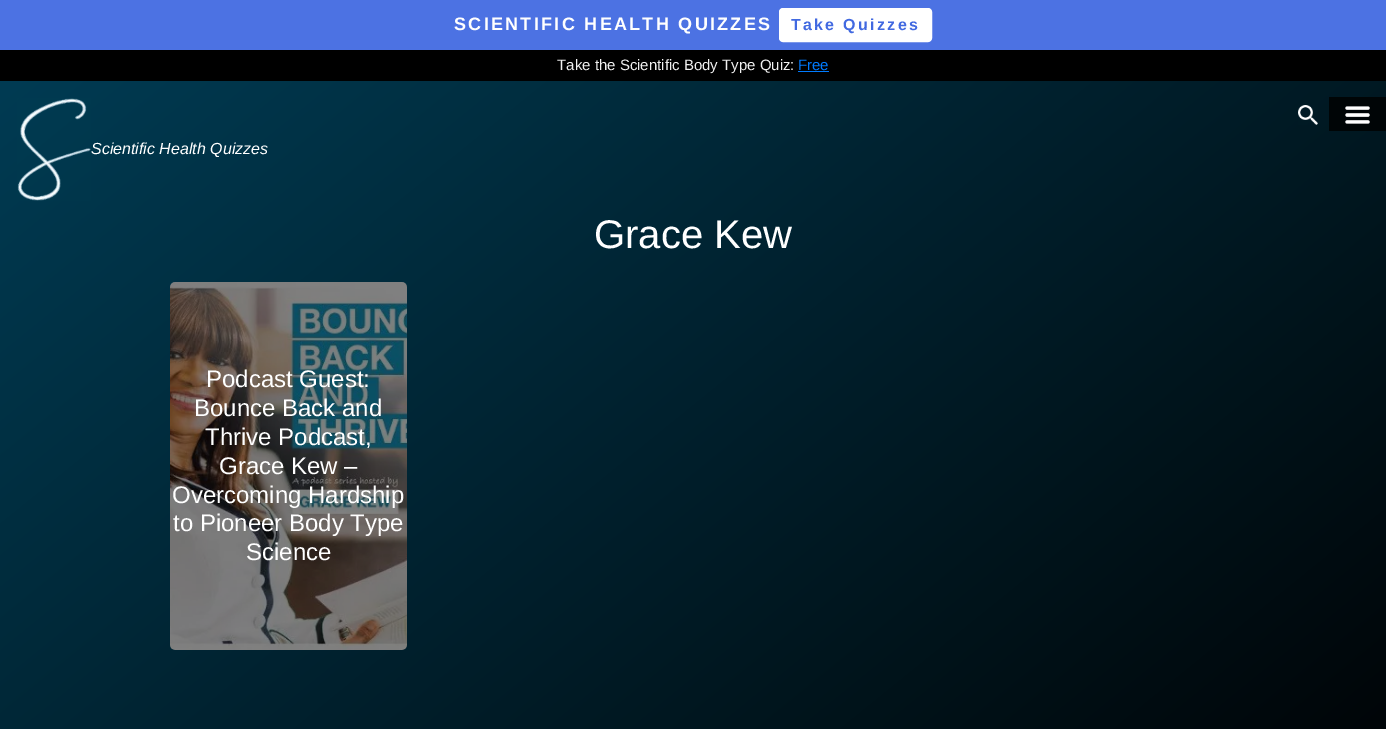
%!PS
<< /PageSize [1386 729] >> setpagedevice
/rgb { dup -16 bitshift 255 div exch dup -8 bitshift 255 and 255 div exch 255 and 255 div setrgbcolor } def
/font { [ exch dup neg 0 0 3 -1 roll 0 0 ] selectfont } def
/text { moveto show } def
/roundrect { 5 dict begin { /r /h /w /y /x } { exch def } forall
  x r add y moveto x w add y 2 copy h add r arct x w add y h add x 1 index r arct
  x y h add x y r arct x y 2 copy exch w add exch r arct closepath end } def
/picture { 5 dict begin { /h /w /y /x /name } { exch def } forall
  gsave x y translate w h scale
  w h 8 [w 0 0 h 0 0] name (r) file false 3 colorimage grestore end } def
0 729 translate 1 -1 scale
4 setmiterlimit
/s1 { /LiberationSans-Regular 15 font 16#F1F1F1 rgb } def
/s2 { /LiberationSans-Regular 15 font 16#007BFF rgb } def
/s3 { /LiberationSans-Italic 16 font 16#FFFFFF rgb } def
/s4 { /LiberationSans-Regular 40 font 16#FFFFFF rgb } def
/s5 { /LiberationSans-Regular 24 font 16#FFFFFF rgb } def
16#FFFFFF rgb
0 0 1386 729 rectfill
gsave 0 81 moveto 1386 81 lineto 1386 729 lineto 0 729 lineto closepath clip newpath
<< /ShadingType 2 /ColorSpace /DeviceRGB /Coords [202 -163 1184 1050] /Extend [true true] /Function << /FunctionType 2 /Domain [0 1] /C0 [0 0.243 0.337] /C1 [0 0 0.004] /N 1 >> >> shfill grestore
gsave 1329 97 moveto 1386 97 lineto 1386 131 lineto 1329 131 lineto closepath clip newpath
<< /ShadingType 2 /ColorSpace /DeviceRGB /Coords [202 -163 1184 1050] /Extend [true true] /Function << /FunctionType 2 /Domain [0 1] /C0 [0 0.047 0.067] /C1 [0 0 0] /N 1 >> >> shfill grestore
16#4C72E3 rgb
0 0 1386 50 rectfill
/LiberationSans-Bold 18 font
16#FFFFFF rgb
454 30 moveto 2.3 0 (SCIENTIFIC HEALTH QUIZZES) ashow
780 9 151 32 3 roundrect gsave fill grestore
2 setlinewidth
stroke
/LiberationSans-Bold 16 font
16#4169E1 rgb
791 30 moveto 2.3 0 (Take Quizzes) ashow
16#000000 rgb
0 50 1386 31 rectfill
s1
(Take the Scientific Body Type Quiz:) 557 70 text
s2
(Free) 798 70 text
798 71 31 1 rectfill
(pic1.raw) 1298 105 20 20 picture
(pic2.raw) 1345 106 25 18 picture
(pic3.raw) 17 98 74 103 picture
s3
(Scientific Health Quizzes) 91 154 text
s4
(Grace Kew) 594 248 text
(pic4.raw) 170 282 237 368 picture
s5
(Podcast Guest:) 206 387 text
(Bounce Back and) 194 416 text
(Thrive Podcast,) 205 445 text
(Grace Kew –) 219 474 text
(Overcoming Hardship) 172 503 text
(to Pioneer Body Type) 173 531 text
(Science) 246 560 text
showpage
